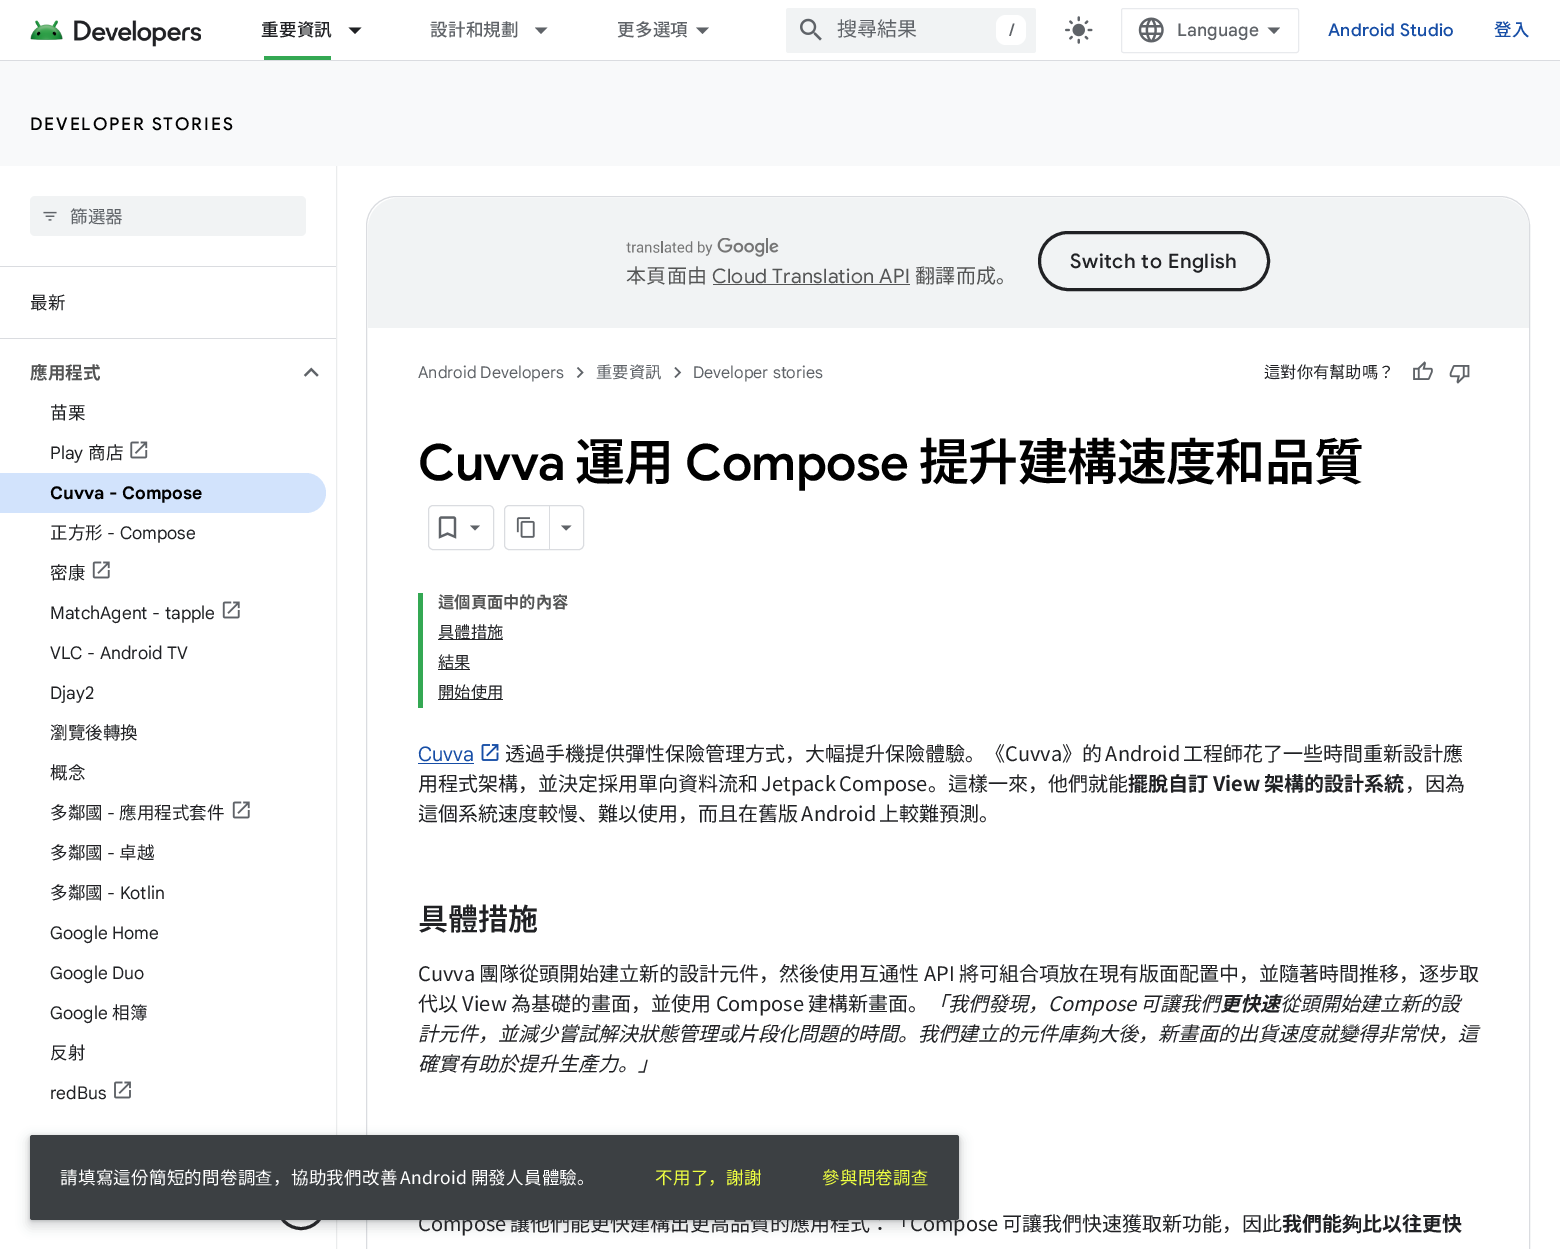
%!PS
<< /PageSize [1560 1249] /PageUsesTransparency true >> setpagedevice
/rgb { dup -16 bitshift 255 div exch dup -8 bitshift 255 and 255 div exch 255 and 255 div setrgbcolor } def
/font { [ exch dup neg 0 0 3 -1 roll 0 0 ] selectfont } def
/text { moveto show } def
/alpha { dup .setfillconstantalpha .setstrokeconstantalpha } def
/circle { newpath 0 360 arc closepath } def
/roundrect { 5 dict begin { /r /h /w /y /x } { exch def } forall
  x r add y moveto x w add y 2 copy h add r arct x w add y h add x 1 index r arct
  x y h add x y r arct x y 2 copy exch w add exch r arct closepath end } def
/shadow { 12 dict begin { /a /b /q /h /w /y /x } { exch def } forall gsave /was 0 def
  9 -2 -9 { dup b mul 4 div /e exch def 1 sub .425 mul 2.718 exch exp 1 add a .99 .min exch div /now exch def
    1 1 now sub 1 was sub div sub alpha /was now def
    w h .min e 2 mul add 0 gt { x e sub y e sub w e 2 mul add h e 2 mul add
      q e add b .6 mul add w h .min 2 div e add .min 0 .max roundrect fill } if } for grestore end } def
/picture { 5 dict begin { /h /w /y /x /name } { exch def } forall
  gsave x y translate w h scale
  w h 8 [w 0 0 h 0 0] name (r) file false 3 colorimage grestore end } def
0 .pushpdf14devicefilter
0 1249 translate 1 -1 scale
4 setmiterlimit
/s1 { /NotoSansJP-Regular 20 font 16#5F6368 rgb } def
/s2 { /GoogleSans-Medium 17.5 font 16#5F6368 rgb } def
/s3 { /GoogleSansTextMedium-Medium 17.5 font 16#5F6368 rgb } def
/s4 { /NotoSansJP-Regular 17.5 font 16#5F6368 rgb } def
/s5 { /NotoSansJP-Regular 17.5 font 16#202124 rgb } def
/s6 { /NotoSansJP-Bold 17.5 font 16#545555 rgb } def
/s7 { /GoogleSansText-Regular 17.5 font 16#202124 rgb } def
/s8 { /GoogleSansText-Bold 17.5 font 16#000000 rgb } def
/s9 { /GoogleSansText-Regular 16.25 font 16#5F6368 rgb } def
/s10 { /NotoSansJP-Regular 16.25 font 16#5F6368 rgb } def
/s11 { /NotoSansJP-Regular 16.25 font 16#202124 rgb } def
/s12 { /NotoSansJP-Bold 16.25 font 16#545555 rgb } def
/s13 { /GoogleSansText-Regular 20 font 16#174EA6 rgb } def
/s14 { /NotoSansJP-Bold 20 font 16#202124 rgb } def
/s15 { /NotoSansJP-Regular 20 font 16#202124 rgb } def
/s16 { /NotoSansJP-SemiBold 30 font 16#202124 rgb } def
/s17 { /NotoSansJP-BoldItalic 20 font 16#202124 rgb } def
/s18 { /NotoSansJP-Italic 20 font 16#202124 rgb } def
/s19 { /WenQuanYiZenHei-MediumItalic 20 font 16#202124 rgb } def
/s20 { /WenQuanYiZenHei-Bold 20 font 16#202124 rgb } def
16#FFFFFF rgb
0 0 1560 1249 rectfill
gsave
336 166 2 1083 rectclip
16#BDC1C6 rgb
0 1 336 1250 0 1 1 shadow
grestore
336 0 2 60 rectfill
16#DADCE0 rgb
0 60 1560 1 rectfill
(pic1.raw) 30 20 171 27 picture
/NotoSansJP-Medium 17.5 font
16#202124 rgb
261 36 moveto 0.3 0 (重要資訊) ashow
16#34A853 rgb
264 56 67 4 rectfill
16#202124 rgb
348.5 27.5 moveto 361.5 27.5 lineto 355 34 lineto closepath fill
16#5F6368 rgb
430 36 moveto 0.3 0 (設計和規劃) ashow
535 27.5 moveto 547.5 27.5 lineto 541 34 lineto closepath fill
617 36 moveto 0.3 0 (更多選項) ashow
696 27.5 moveto 709 27.5 lineto 702.5 34 lineto closepath fill
16#F1F3F4 rgb
786 8 250 45 2.5 roundrect fill
(pic2.raw) 800 18 22 23 picture
s1
(搜尋結果) 837 36 text
16#FFFFFF rgb
996 15 30 30 10 roundrect fill
s2
(/) 1009 36 text
(pic3.raw) 1065 16 28 28 picture
16#E8EAED rgb
1121.5 8.5 177 44 2 roundrect stroke
(pic4.raw) 1138 17 26 26 picture
s3
(Language) 1177 36 text
1274 34 moveto 1267.5 27.5 lineto 1280 27.5 lineto closepath fill
/GoogleSans-Medium 17.5 font
16#174EA6 rgb
1328 36 moveto 0.3 0 (Android Studio) ashow
/NotoSansJP-Medium 17.5 font
1494 36 moveto 0.3 0 (登入) ashow
16#F8F9FA rgb
0 61 1560 105 rectfill
/GoogleSans-Medium 17.5 font
16#000000 rgb
30 130 moveto 1.9 0 (DEVELOPER STORIES) ashow
16#DADCE0 rgb
0 266 336 1 rectfill
16#F1F3F4 rgb
30 196 276 40 5 roundrect fill
(pic5.raw) 43 211 14 10 picture
s4
(篩選器) 70 223 text
s5
(最新) 30 309 text
16#DADCE0 rgb
0 338 336 1 rectfill
s6
(應用程式) 30 379 text
(pic6.raw) 303 367 16 10 picture
s5
(苗栗) 50 419 text
s7
(Play) 50 459 text
s5
(商店) 88 459 text
(pic7.raw) 130 441 18 18 picture
16#D2E3FC rgb
0 473 moveto 306 473 lineto 317 473 326 482 326 493 curveto 326 504 317 513 306 513 curveto 0 513 lineto closepath fill
s8
(Cuvva - Compose) 50 499 text
s5
(正方形) 50 539 text
s7
(- Compose) 107 539 text
s5
(密康) 50 579 text
(pic8.raw) 92 561 18 18 picture
s7
(MatchAgent - tapple) 50 619 text
(pic8.raw) 222 601 18 18 picture
(VLC - Android TV) 50 659 text
(Djay2) 50 699 text
s5
(瀏覽後轉換) 50 739 text
(概念) 50 779 text
(多鄰國) 50 819 text
s7
(-) 107 819 text
s5
(應用程式套件) 119 819 text
(pic8.raw) 232 801 18 18 picture
(多鄰國) 50 859 text
s7
(-) 107 859 text
s5
(卓越) 119 859 text
(多鄰國) 50 899 text
s7
(- Kotlin) 107 899 text
(Google Home) 50 939 text
(Google Duo) 50 979 text
(Google) 50 1019 text
s5
(相簿) 112 1019 text
(反射) 50 1059 text
s7
(redBus) 50 1099 text
(pic9.raw) 114 1081 17 18 picture
3 setlinewidth
301 1205 23.5 circle stroke
16#DADCE0 rgb
1 setlinewidth
366.5 196.5 1163 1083 29.5 roundrect stroke
16#F1F3F4 rgb
398 198 moveto 1499 198 lineto 1515.5 198 1529 211.5 1529 228 curveto 1529 328 lineto 368 328 lineto 368 228 lineto 368 211.5 381.5 198 398 198 curveto closepath fill
16#202124 rgb
3 setlinewidth
1039.5 232.5 229 57 28.5 roundrect stroke
/GoogleSans-Medium 20 font
1070 268 moveto 0.6 0 (Switch to English) ashow
(pic10.raw) 626 238 153 19 picture
/NotoSansJP-Regular 20 font
16#545555 rgb
626 283 moveto 0.3 0 (本頁面由) ashow
/GoogleSans-Regular 20 font
712 283 moveto 0.3 0 (Cloud Translation API) ashow
713 284 197 1 rectfill
/NotoSansJP-Regular 20 font
915 283 moveto 0.3 0 (翻譯而成。) ashow
s9
(Android Developers) 418 378 text
(pic11.raw) 576 367 8 11 picture
s10
(重要資訊) 596 378 text
(pic12.raw) 674 367 8 11 picture
s9
(Developer stories) 693 378 text
s11
(這對你有幫助嗎？) 1264 378 text
(pic13.raw) 1413 361 20 19 picture
(pic14.raw) 1449 365 21 19 picture
/GoogleSans-SemiBold 50 font
16#000000 rgb
418 480 moveto -0.6 0 (Cuvva) ashow
/NotoSansJP-SemiBold 50 font
575 480 moveto -0.6 0 (運用) ashow
/GoogleSans-SemiBold 50 font
685 480 moveto -0.6 0 (Compose) ashow
/NotoSansJP-SemiBold 50 font
919 480 moveto -0.6 0 (提升建構速度和品質) ashow
16#DADCE0 rgb
1 setlinewidth
428.5 505.5 65 44 4.5 roundrect stroke
(pic15.raw) 438 516 19 23 picture
16#5F6368 rgb
470 525.5 moveto 480 525.5 lineto 475 530.5 lineto closepath fill
16#DADCE0 rgb
504.5 505.5 79 44 4.5 roundrect stroke
549 506 1 43 rectfill
(pic16.raw) 516 517 19 21 picture
16#5F6368 rgb
561 525.5 moveto 571.5 525.5 lineto 566 530.5 lineto closepath fill
16#34A853 rgb
418 593 5 115 rectfill
s12
(這個頁面中的內容) 438 608 text
16#202124 rgb
438 639 65 1 rectfill
s11
(具體措施) 438 638 text
438 669 32 1 rectfill
(結果) 438 668 text
438 699 65 1 rectfill
(開始使用) 438 698 text
s13
(Cuvva) 418 761 text
418 763 56 1 rectfill
(pic17.raw) 481 744 18 17 picture
/NotoSansJP-Regular 20 font
16#202124 rgb
505 761 moveto -1 0 32 (透過手機提供彈性保險管理方式，大幅提升保險體驗。《Cuvva》的 Android 工程師花了一些時間重新設計應) widthshow
418 791 moveto -1 0 32 (用程式架構，並決定採用單向資料流和 Jetpack Compose。這樣一來，他們就能) widthshow
s14
(擺脫自訂 View 架構的設計系統) 1128 791 text
s15
(，因為) 1405 791 text
418 821 moveto -1 0 32 (這個系統速度較慢、難以使用，而且在舊版 Android 上較難預測。) widthshow
s16
(具體措施) 418 930 text
s15
(Cuvva 團隊從頭開始建立新的設計元件，然後使用互通性 API 將可組合項放在現有版面配置中，並隨著時間推移，逐步取) 418 981 text
(代以 View 為基礎的畫面，並使用 Compose 建構新畫面。) 418 1011 text
/NotoSansJP-Italic 20 font
928 1011 moveto -1 0 32 (「我們發現，Compose 可讓我們) widthshow
s17
(更快速) 1220 1011 text
s18
(從頭開始建立新的設) 1280 1011 text
(計元件，並減少嘗試解決狀態管理或片段化問題的時間。我們建立的元件庫) 418 1041 text
s19
(夠) 1078 1041 text
s18
(大後，新畫面的出貨速度就變得非常快，這) 1098 1041 text
(確實有助於提升生產力。」) 418 1071 text
/NotoSansJP-Regular 20 font
418 1231 moveto -1 0 32 (Compose 讓他們能更快建構出更高品質的應用程式：「Compose 可讓我們快速獲取新功能，因此) widthshow
s14
(我們能) 1282 1231 text
s20
(夠) 1342 1231 text
s14
(比以往更快) 1362 1231 text
16#3C4043 rgb
26 1136 937 93 6 5 0.15 shadow
30 1136 929 85 2.5 2 0.3 shadow
30 1135 929 85 2.5 roundrect fill
/NotoSansJP-Regular 17.5 font
16#FFFFFF rgb
60 1184 moveto 0.25 0 (請填寫這份簡短的問卷調) ashow
/WenQuanYiZenHei-Medium 17.5 font
255 1184 moveto 0.25 0 (查) ashow
/NotoSansJP-Regular 17.5 font
273 1184 moveto -1 0 32 0.25 0 (，協助我們改善 Android 開發人員體驗。) awidthshow
16#EEFF41 rgb
655 1184 moveto 0.3 0 (不用了，謝謝) ashow
822 1184 moveto 0.3 0 (參與問卷調) ashow
/WenQuanYiZenHei-Medium 17.5 font
911 1184 moveto 0.3 0 (查) ashow
.poppdf14devicefilter showpage
